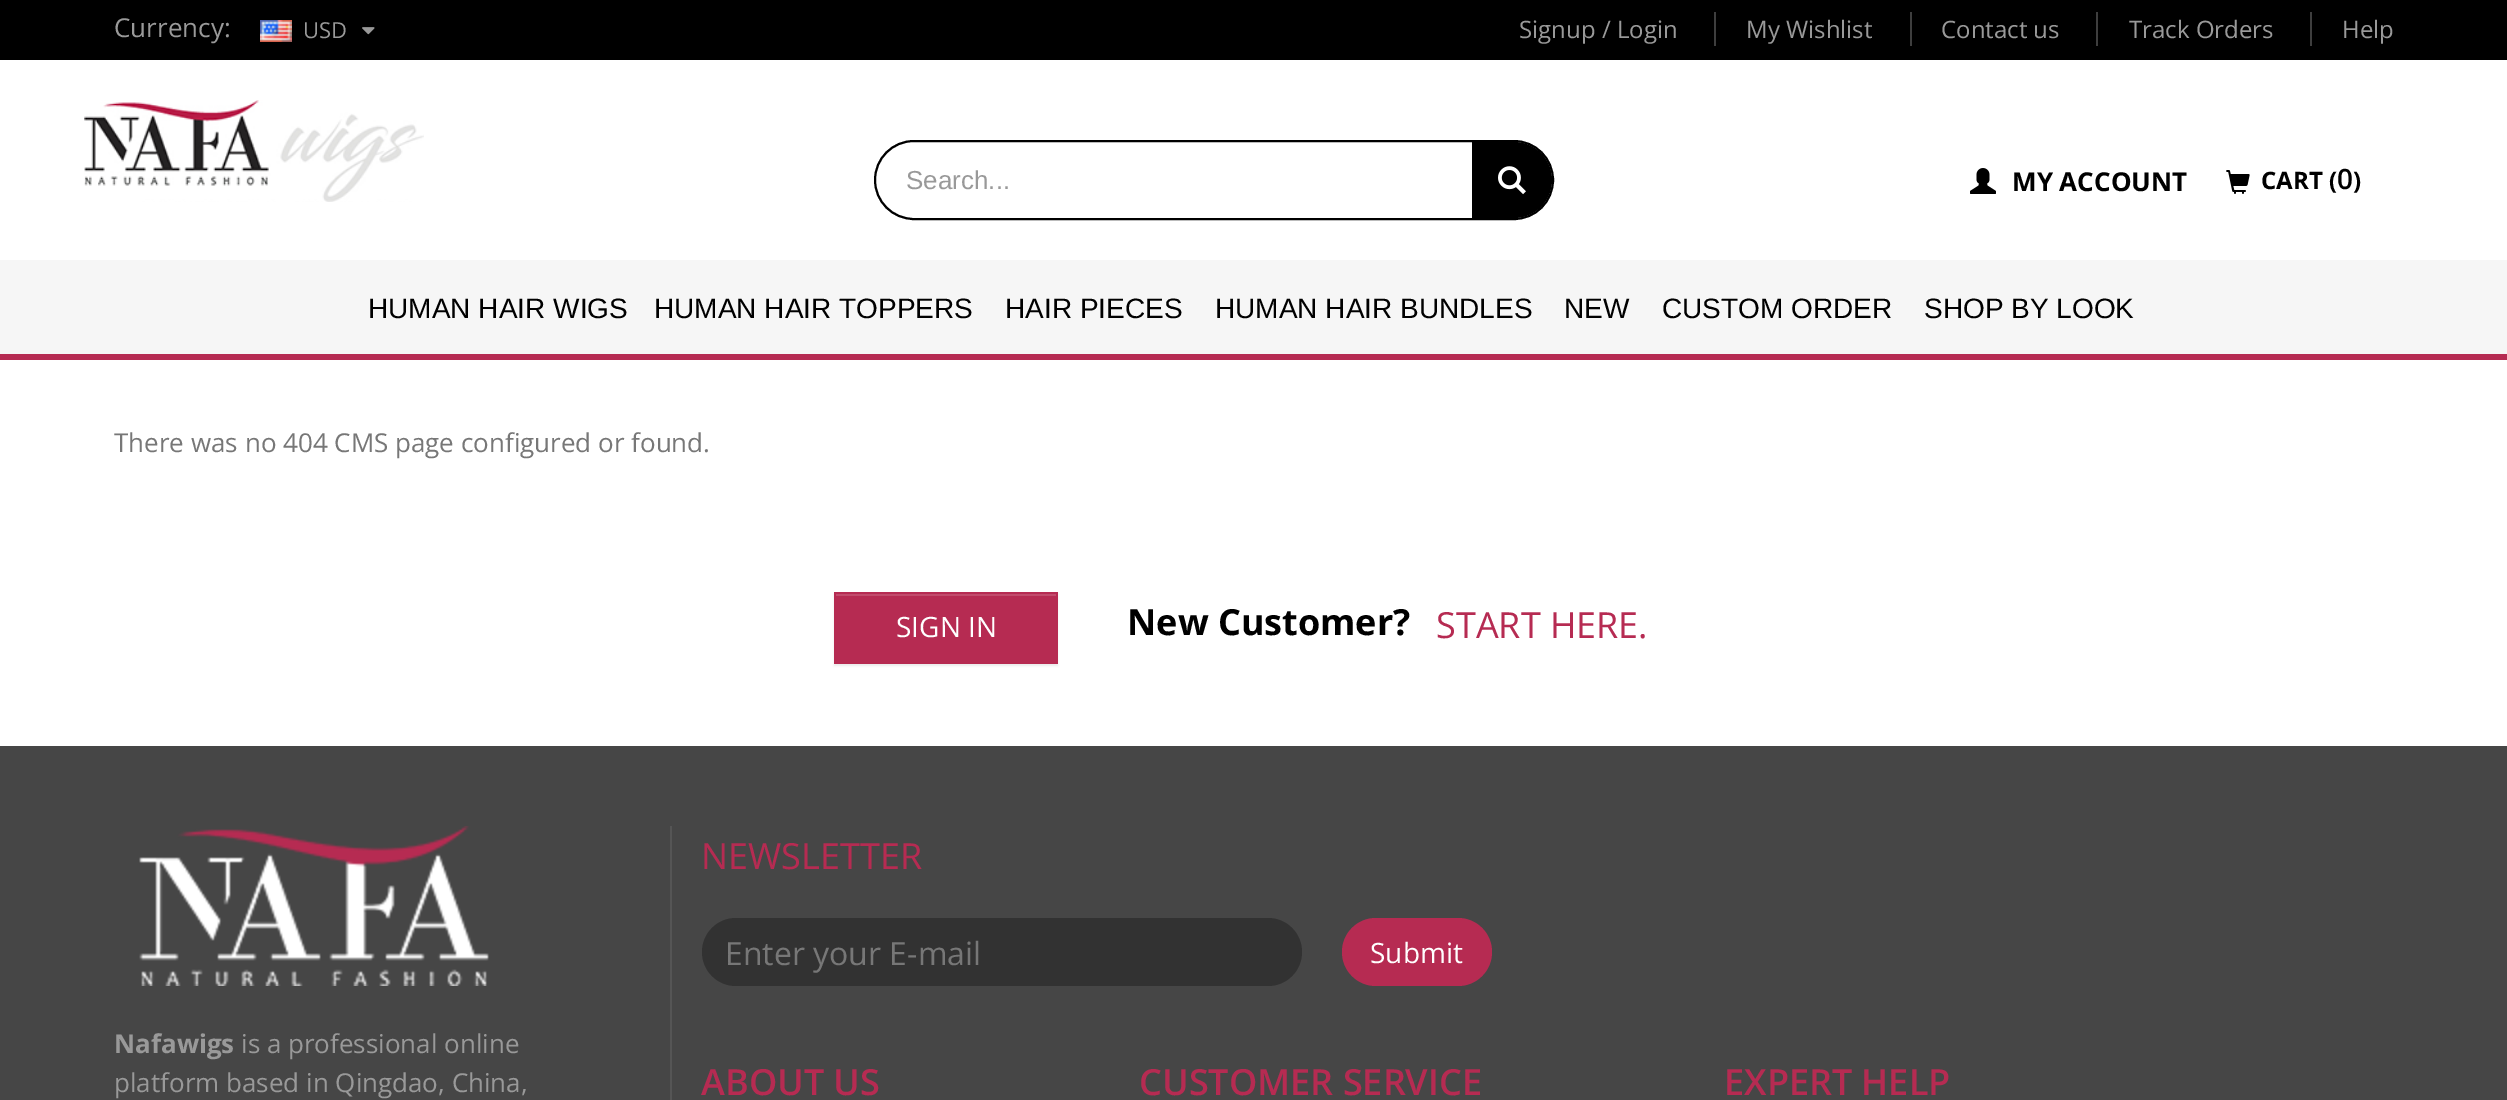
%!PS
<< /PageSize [2507 1100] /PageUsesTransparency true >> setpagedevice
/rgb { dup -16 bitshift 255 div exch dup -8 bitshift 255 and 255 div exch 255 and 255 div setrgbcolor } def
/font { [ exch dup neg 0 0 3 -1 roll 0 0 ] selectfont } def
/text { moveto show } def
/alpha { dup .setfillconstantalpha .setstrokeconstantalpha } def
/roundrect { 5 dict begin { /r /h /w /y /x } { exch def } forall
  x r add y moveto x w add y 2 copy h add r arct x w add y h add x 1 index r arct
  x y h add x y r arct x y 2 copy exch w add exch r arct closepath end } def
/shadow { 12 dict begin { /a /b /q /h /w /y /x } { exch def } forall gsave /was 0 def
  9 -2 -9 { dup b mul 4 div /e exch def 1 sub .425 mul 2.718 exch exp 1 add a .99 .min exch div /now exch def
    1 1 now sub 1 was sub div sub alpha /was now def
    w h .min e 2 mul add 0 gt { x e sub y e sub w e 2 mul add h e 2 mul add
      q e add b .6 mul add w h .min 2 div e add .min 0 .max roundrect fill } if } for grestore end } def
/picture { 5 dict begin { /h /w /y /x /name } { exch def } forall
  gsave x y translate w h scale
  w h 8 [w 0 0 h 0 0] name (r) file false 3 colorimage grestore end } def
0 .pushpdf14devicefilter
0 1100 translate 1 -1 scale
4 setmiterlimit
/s1 { /OpenSans-Regular 26 font 16#999999 rgb } def
/s2 { /OpenSans-Regular 22 font 16#999999 rgb } def
/s3 { /OpenSans-Regular 24 font 16#999999 rgb } def
/s4 { /LiberationSans-Regular 26 font 16#999999 rgb } def
/s5 { /OpenSans-Bold 26 font 16#000000 rgb } def
/s6 { /OpenSans-Bold 24 font 16#000000 rgb } def
/s7 { /OpenSans-SemiBold 28 font 16#000000 rgb } def
/s8 { /LiberationSans-Regular 28 font 16#000000 rgb } def
/s9 { /OpenSans-Regular 26 font 16#777777 rgb } def
/s10 { /OpenSans-Regular 28 font 16#FFFFFF rgb } def
/s11 { /OpenSans-Bold 36 font 16#000000 rgb } def
/s12 { /OpenSans-Regular 36 font 16#B62B52 rgb } def
/s13 { /OpenSans-Bold 26 font 16#999999 rgb } def
/s14 { /OpenSans-Regular 32 font 16#777777 rgb } def
/s15 { /OpenSans-SemiBold 36 font 16#B62B52 rgb } def
16#FFFFFF rgb
0 0 2507 1100 rectfill
16#000000 rgb
0 0 2507 60 rectfill
s1
(Currency:) 114 37 text
(pic1.raw) 260 20 32 22 picture
s2
(USD) 303 38 text
(pic2.raw) 362 27 13 8 picture
s3
(Signup / Login) 1519 38 text
(My Wishlist) 1746 38 text
16#3E3E3E rgb
1714 12 2 34 rectfill
s3
(Contact us) 1941 38 text
16#3E3E3E rgb
1910 12 2 34 rectfill
s3
(Track Orders) 2129 38 text
16#3E3E3E rgb
2096 12 2 34 rectfill
s3
(Help) 2342 38 text
16#3E3E3E rgb
2310 12 2 34 rectfill
(pic3.raw) 84 100 340 102 picture
16#000000 rgb
2 setlinewidth
875 141 678 78 39 roundrect stroke
s4
(Search...) 906 189 text
16#000000 rgb
1472 142 moveto 1514 142 lineto 1535 142 1552 159 1552 180 curveto 1552 201 1535 218 1514 218 curveto 1472 218 lineto closepath fill
(pic4.raw) 1498 166 28 29 picture
(pic5.raw) 1970 168 26 26 picture
s5
(MY ACCOUNT) 2012 191 text
(pic6.raw) 2226 170 24 24 picture
s6
(CART \() 2261 189 text
s7
(0) 2337 189 text
s6
(\)) 2353 189 text
16#F6F6F6 rgb
0 260 2507 94 rectfill
s8
(HUMAN HAIR WIGS) 368 318 text
(HUMAN HAIR TOPPERS) 654 318 text
(HAIR PIECES) 1005 318 text
(HUMAN HAIR BUNDLES) 1215 318 text
(NEW) 1564 318 text
(CUSTOM ORDER) 1662 318 text
(SHOP BY LOOK) 1924 318 text
16#B62B52 rgb
0 354 2507 6 rectfill
s9
(There was no 404 CMS page configured or found.) 114 452 text
16#000000 rgb
834 594 224 72 0 1 0.07 shadow
16#B62B52 rgb
834 592 224 72 rectfill
16#C14B6C rgb
836 594 220 2 rectfill
s10
(SIGN IN) 896 637 text
s11
(New Customer?) 1127 635 text
s12
(START HERE.) 1436 638 text
16#464646 rgb
0 746 2507 354 rectfill
(pic7.raw) 139 826 350 160 picture
s13
(Nafawigs) 114 1053 text
s1
(is a professional online) 241 1053 text
(platform based in Qingdao, China,) 114 1092 text
16#555555 rgb
670 826 2 274 rectfill
s12
(NEWSLETTER) 701 869 text
16#323232 rgb
702 918 600 68 34 roundrect fill
s14
(Enter your E-mail) 725 965 text
16#B62B52 rgb
1342 918 150 68 34 roundrect fill
s10
(Submit) 1370 963 text
s15
(ABOUT US) 701 1095 text
(CUSTOMER SERVICE) 1139 1095 text
(EXPERT HELP) 1724 1095 text
.poppdf14devicefilter showpage
